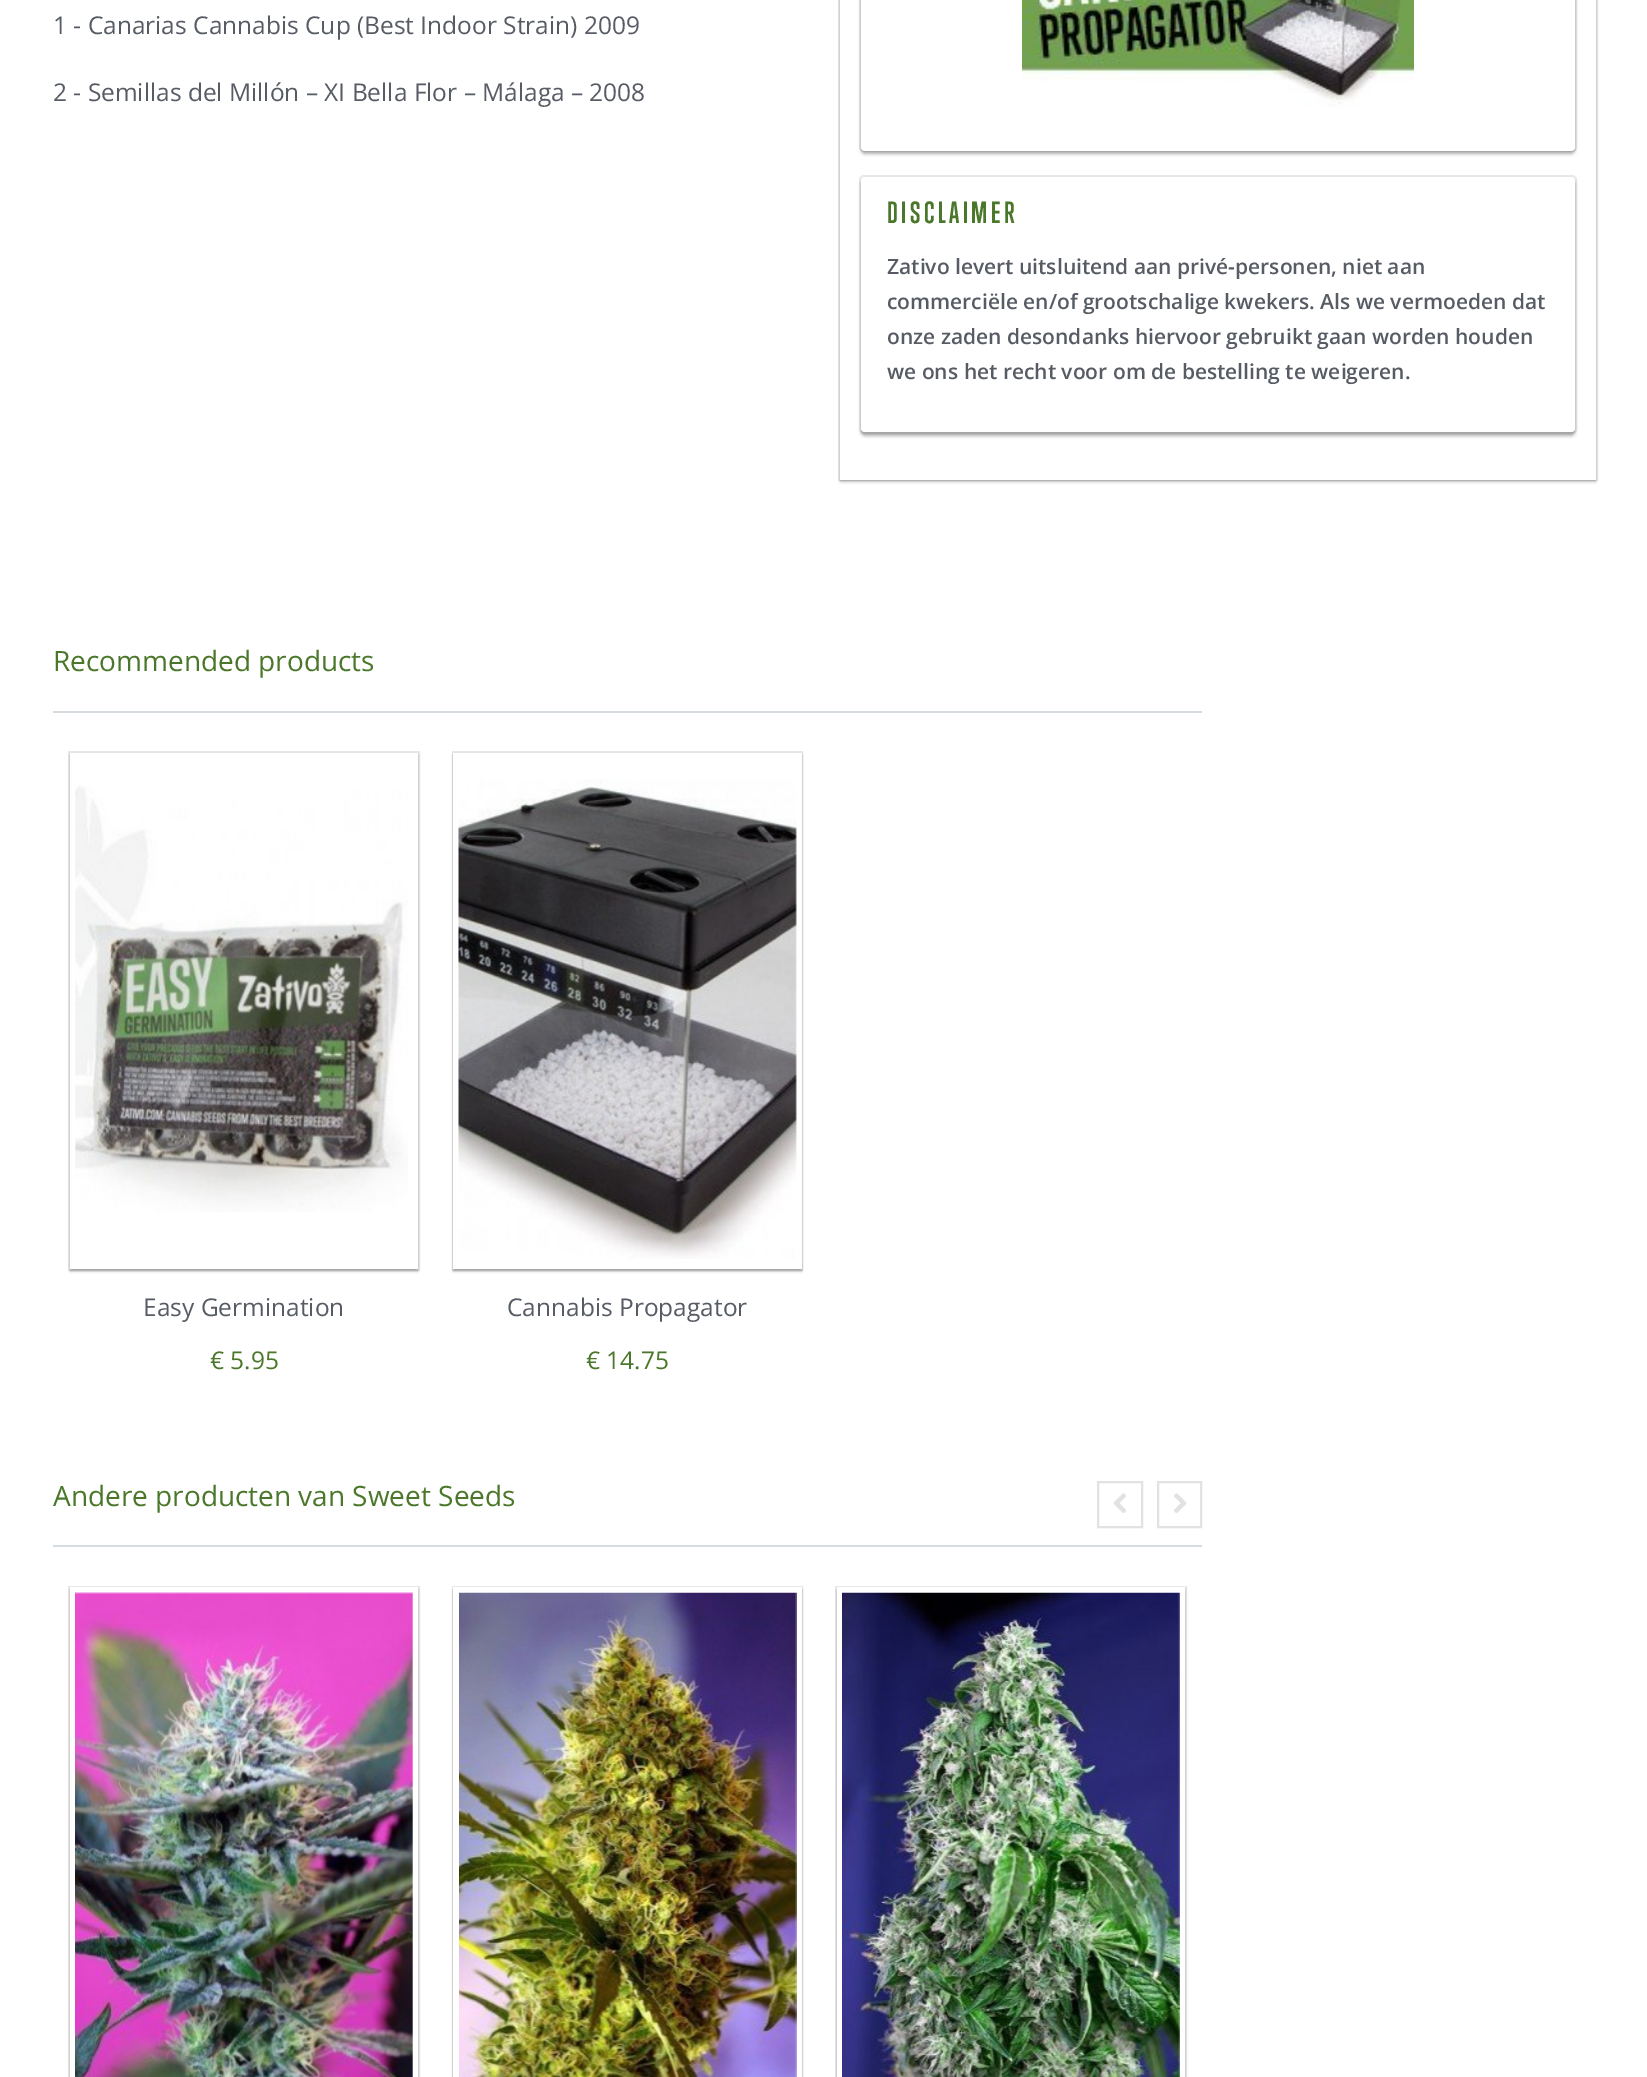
%!PS
<< /PageSize [1647 2077] /PageUsesTransparency true >> setpagedevice
/rgb { dup -16 bitshift 255 div exch dup -8 bitshift 255 and 255 div exch 255 and 255 div setrgbcolor } def
/font { [ exch dup neg 0 0 3 -1 roll 0 0 ] selectfont } def
/text { moveto show } def
/alpha { dup .setfillconstantalpha .setstrokeconstantalpha } def
/roundrect { 5 dict begin { /r /h /w /y /x } { exch def } forall
  x r add y moveto x w add y 2 copy h add r arct x w add y h add x 1 index r arct
  x y h add x y r arct x y 2 copy exch w add exch r arct closepath end } def
/shadow { 12 dict begin { /a /b /q /h /w /y /x } { exch def } forall gsave /was 0 def
  9 -2 -9 { dup b mul 4 div /e exch def 1 sub .425 mul 2.718 exch exp 1 add a .99 .min exch div /now exch def
    1 1 now sub 1 was sub div sub alpha /was now def
    w h .min e 2 mul add 0 gt { x e sub y e sub w e 2 mul add h e 2 mul add
      q e add b .6 mul add w h .min 2 div e add .min 0 .max roundrect fill } if } for grestore end } def
/picture { 5 dict begin { /h /w /y /x /name } { exch def } forall
  gsave x y translate w h scale
  w h 8 [w 0 0 h 0 0] name (r) file false 3 colorimage grestore end } def
0 .pushpdf14devicefilter
0 2077 translate 1 -1 scale
4 setmiterlimit
/s1 { /OpenSans-Regular 24.5 font 16#565B64 rgb } def
/s2 { /OpenSans-SemiBold 21 font 16#565B64 rgb } def
/s3 { /OpenSans-Regular 28 font 16#4A7729 rgb } def
/s4 { /OpenSans-Regular 24.5 font 16#4A7729 rgb } def
16#FFFFFF rgb
0 0 1647 2077 rectfill
s1
(1 - Canarias Cannabis Cup \(Best Indoor Strain\) 2009) 53 34 text
(2 - Semillas del Millón – XI Bella Flor – Málaga – 2008) 53 101 text
16#000000 rgb
840 -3 756 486 0 1 0.1 shadow
840 -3 756 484 0 1 0.2 shadow
0.09 alpha
2 setlinewidth
839 -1 758 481 rectstroke
1 alpha
16#FFFFFF rgb
840 0 756 480 rectfill
16#000000 rgb
861 -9 714 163 4 1.5 0.1 shadow
861 -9 714 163 4 1.5 0.2 shadow
0.09 alpha
860 -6 716 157 4 roundrect stroke
1 alpha
16#FFFFFF rgb
861 -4 714 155 4 roundrect fill
(pic1.raw) 1022 0 392 107 picture
16#000000 rgb
861 180 714 256 4 1.5 0.1 shadow
861 180 714 256 4 1.5 0.2 shadow
0.09 alpha
860 176 716 257 4 roundrect stroke
1 alpha
16#FFFFFF rgb
861 177 714 255 4 roundrect fill
/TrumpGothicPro-Bold 28 font
16#4A7729 rgb
887 223 moveto 3.5 0 (DISCLAIMER) ashow
s2
(Zativo levert uitsluitend aan privé-personen, niet aan) 887 274 text
(commerciële en/of grootschalige kwekers. Als we vermoeden dat) 887 309 text
(onze zaden desondanks hiervoor gebruikt gaan worden houden) 887 344 text
(we ons het recht voor om de bestelling te weigeren.) 887 379 text
16#D7DCE2 rgb
53 711 1149 2 rectfill
s3
(Recommended products) 53 671 text
16#000000 rgb
70 756 348 516 0 1 0.1 shadow
70 754 348 517 0 1 0.2 shadow
0.09 alpha
69 752 350 518 rectstroke
1 alpha
16#FFFFFF rgb
70 753 348 516 rectfill
(pic2.raw) 75 785 333 427 picture
s1
(Easy Germination) 143 1316 text
s4
(€ 5.95) 210 1369 text
16#000000 rgb
453 756 349 516 0 1 0.1 shadow
453 754 349 517 0 1 0.2 shadow
0.09 alpha
453 752 349 518 rectstroke
1 alpha
16#FFFFFF rgb
453 753 349 516 rectfill
(pic3.raw) 458 779 339 480 picture
s1
(Cannabis Propagator) 507 1316 text
s4
(€ 14.75) 586 1369 text
16#E3E2E2 rgb
1098 1482 44 45 rectstroke
(pic4.raw) 1113 1493 13 20 picture
1158 1482 43 45 rectstroke
(pic5.raw) 1174 1493 13 20 picture
16#000000 rgb
70 1591 348 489 0 1 0.1 shadow
70 1589 348 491 0 1 0.2 shadow
0.09 alpha
69 1587 350 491 rectstroke
1 alpha
16#FFFFFF rgb
70 1587 348 490 rectfill
(pic6.raw) 75 1592 338 485 picture
16#000000 rgb
453 1591 349 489 0 1 0.1 shadow
453 1589 349 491 0 1 0.2 shadow
0.09 alpha
453 1587 349 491 rectstroke
1 alpha
16#FFFFFF rgb
453 1587 349 490 rectfill
(pic7.raw) 459 1592 338 485 picture
16#000000 rgb
837 1591 348 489 0 1 0.1 shadow
837 1589 348 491 0 1 0.2 shadow
0.09 alpha
836 1587 350 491 rectstroke
1 alpha
16#FFFFFF rgb
837 1587 348 490 rectfill
(pic8.raw) 842 1592 338 485 picture
16#D7DCE2 rgb
53 1545 1149 2 rectfill
s3
(Andere producten van Sweet Seeds) 53 1506 text
.poppdf14devicefilter showpage
